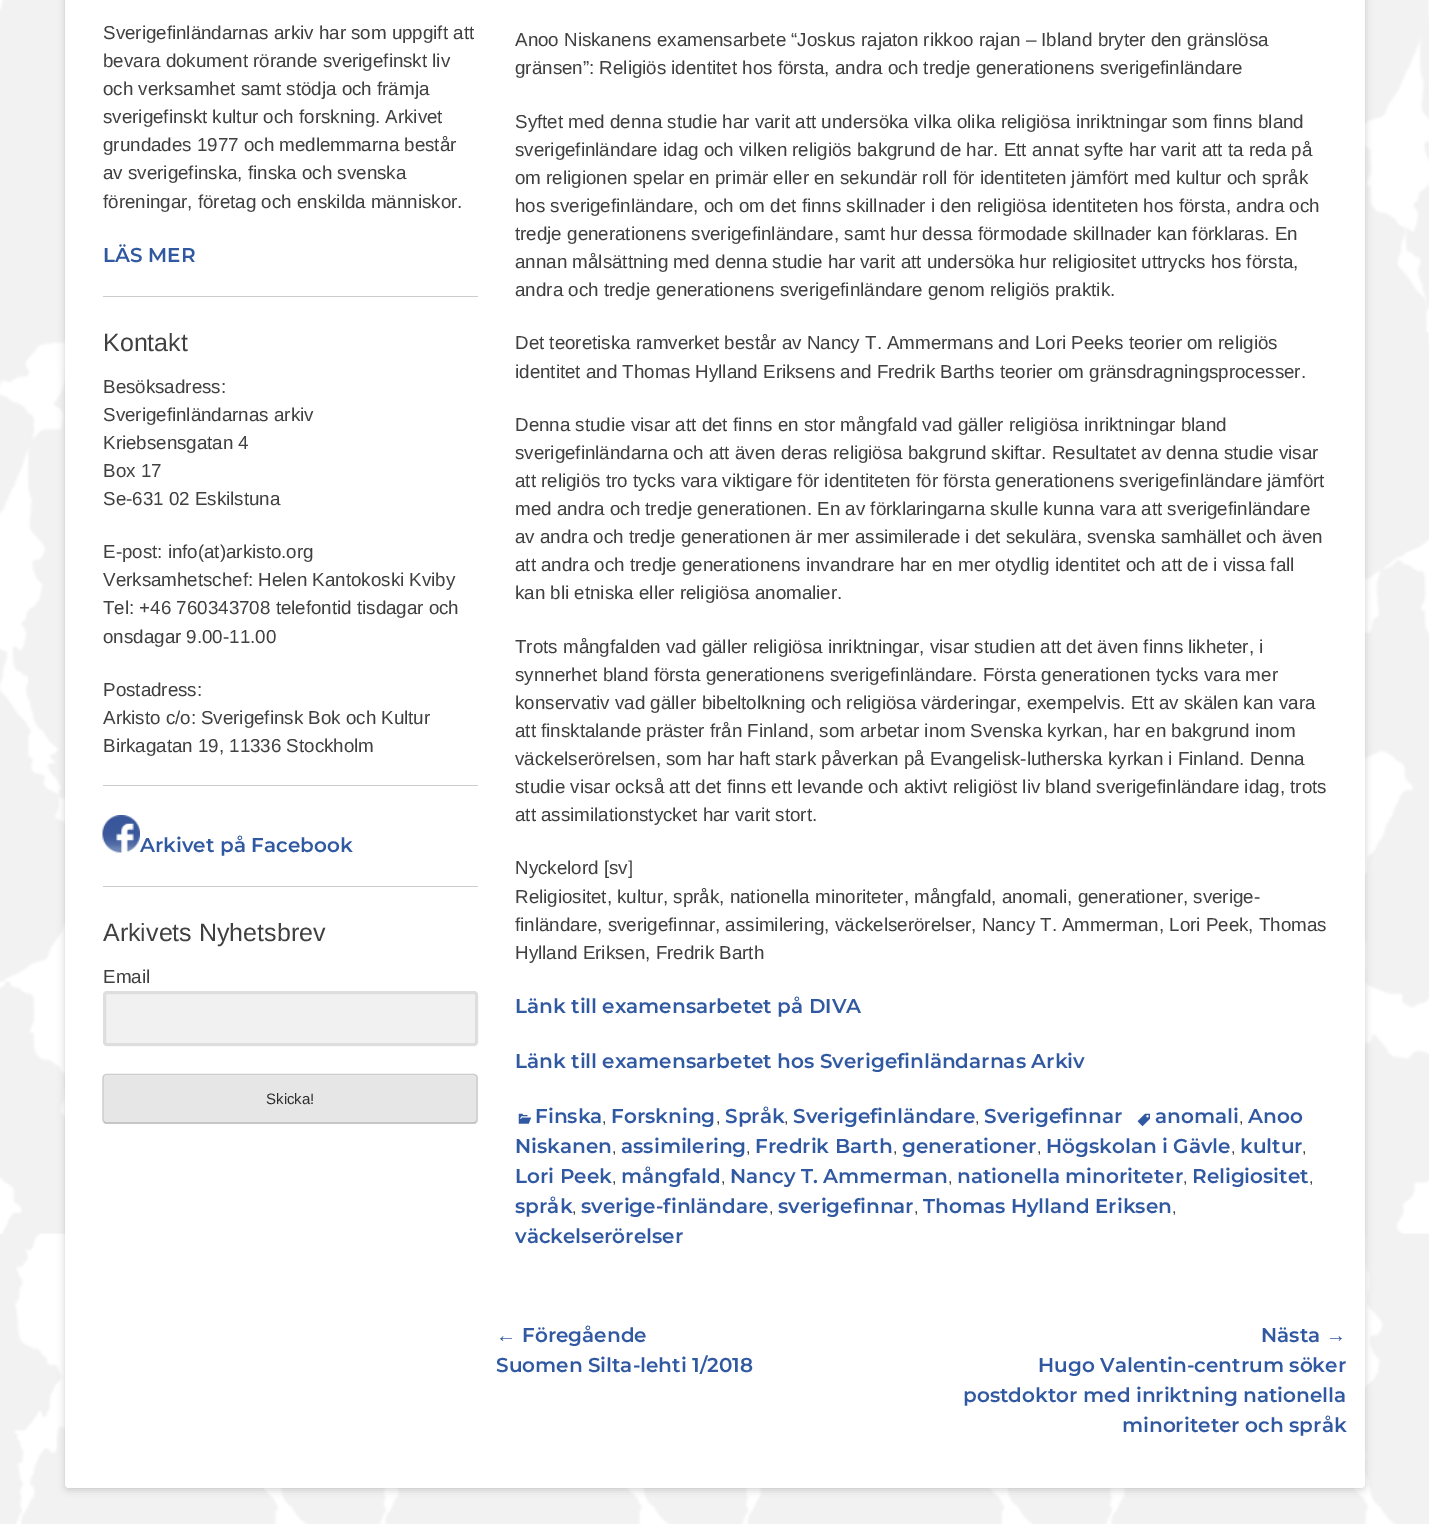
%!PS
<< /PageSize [1429 1524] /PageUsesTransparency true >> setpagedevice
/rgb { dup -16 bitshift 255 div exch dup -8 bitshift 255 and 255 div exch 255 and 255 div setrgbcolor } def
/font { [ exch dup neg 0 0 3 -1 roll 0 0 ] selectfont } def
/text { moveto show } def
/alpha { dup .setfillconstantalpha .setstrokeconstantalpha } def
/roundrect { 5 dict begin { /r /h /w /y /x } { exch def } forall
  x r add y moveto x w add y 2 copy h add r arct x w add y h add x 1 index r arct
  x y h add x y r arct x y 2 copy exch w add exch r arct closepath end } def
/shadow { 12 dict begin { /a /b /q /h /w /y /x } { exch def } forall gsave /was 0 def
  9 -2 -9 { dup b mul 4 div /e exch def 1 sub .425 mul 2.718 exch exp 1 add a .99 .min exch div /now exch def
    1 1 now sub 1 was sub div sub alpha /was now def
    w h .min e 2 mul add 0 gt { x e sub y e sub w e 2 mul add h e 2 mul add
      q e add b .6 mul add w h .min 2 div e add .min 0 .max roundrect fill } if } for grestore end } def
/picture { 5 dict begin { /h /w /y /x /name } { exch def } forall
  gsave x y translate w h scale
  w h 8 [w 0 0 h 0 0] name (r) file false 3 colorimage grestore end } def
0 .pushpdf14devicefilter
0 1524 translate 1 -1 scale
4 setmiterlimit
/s1 { /LiberationSans-Regular 18.75 font 16#404040 rgb } def
/s2 { /Montserrat-Thin 20 font 16#3159A1 rgb } def
/s3 { /LiberationSans-Regular 25 font 16#404040 rgb } def
/s4 { /LiberationSans-Regular 15 font 16#2E2E2E rgb } def
/s5 { /LiberationSans-Regular 16 font 16#404040 rgb } def
/s6 { /LiberationSerif-Regular 20 font 16#3159A1 rgb } def
16#FFFFFF rgb
0 0 1429 1524 rectfill
(pic1.raw) 0 0 1429 1524 picture
16#646464 rgb
65 -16 1300 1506 4 4 0.3 shadow
16#FFFFFF rgb
65 -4 1300 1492 4 roundrect fill
s1
(Sverigefinländarnas arkiv har som uppgift att) 103 39 text
(bevara dokument rörande sverigefinskt liv) 103 67 text
(och verksamhet samt stödja och främja) 103 95 text
(sverigefinskt kultur och forskning. Arkivet) 103 123 text
(grundades 1977 och medlemmarna består) 103 151 text
(av sverigefinska, finska och svenska) 103 179 text
(föreningar, företag och enskilda människor.) 103 208 text
s2
(LÄS MER) 103 262 text
16#CCCCCC rgb
103 296 375 1 rectfill
s3
(Kontakt) 103 351 text
s1
(Besöksadress:) 103 393 text
(Sverigefinländarnas arkiv) 103 421 text
(Kriebsensgatan 4) 103 449 text
(Box 17) 103 477 text
(Se-631 02 Eskilstuna) 103 505 text
(E-post: info\(at\)arkisto.org) 103 558 text
(Verksamhetschef: Helen Kantokoski Kviby) 103 586 text
(Tel: +46 760343708 telefontid tisdagar och) 103 614 text
(onsdagar 9.00-11.00) 103 643 text
(Postadress:) 103 696 text
(Arkisto c/o: Sverigefinsk Bok och Kultur) 103 724 text
(Birkagatan 19, 11336 Stockholm) 103 752 text
16#CCCCCC rgb
103 785 375 1 rectfill
(pic2.raw) 102 815 38 38 picture
s2
(Arkivet på Facebook) 140 852 text
16#CCCCCC rgb
103 886 375 1 rectfill
s3
(Arkivets Nyhetsbrev) 103 941 text
s1
(Email) 103 983 text
16#F1F1F1 rgb
103 991 375 55 4 roundrect fill
0.1 alpha
16#333333 rgb
3 setlinewidth
104.5 992.5 372 52 2.5 roundrect stroke
1 alpha
16#E6E6E6 rgb
103 1074 375 50 4 roundrect fill
16#F3F3F3 rgb
106 1076 moveto 474 1076 lineto 475 1076 476 1077 476 1079 curveto 476 1077 476 1075 474 1075 curveto 106 1075 lineto 104 1075 104 1077 104 1079 curveto 104 1077 105 1076 106 1076 curveto closepath fill
16#BBBBBB rgb
1.2 setlinewidth
476 1122 moveto 474 1123 lineto 106 1123 lineto 104 1122 lineto stroke
16#CCCCCC rgb
104 1122 moveto 103 1120 lineto 103 1077.5 lineto 104 1075.5 lineto 106 1074.5 lineto 474 1074.5 lineto 476 1075.5 lineto 477 1077.5 lineto 477 1120 lineto 476 1122 lineto stroke
s4
(Skicka!) 266 1104 text
s1
(Anoo Niskanens examensarbete “Joskus rajaton rikkoo rajan – Ibland bryter den gränslösa) 515 46 text
(gränsen”: Religiös identitet hos första, andra och tredje generationens sverigefinländare) 515 74 text
(Syftet med denna studie har varit att undersöka vilka olika religiösa inriktningar som finns bland) 515 128 text
(sverigefinländare idag och vilken religiös bakgrund de har. Ett annat syfte har varit att ta reda på) 515 156 text
(om religionen spelar en primär eller en sekundär roll för identiteten jämfört med kultur och språk) 515 184 text
(hos sverigefinländare, och om det finns skillnader i den religiösa identiteten hos första, andra och) 515 212 text
(tredje generationens sverigefinländare, samt hur dessa förmodade skillnader kan förklaras. En) 515 240 text
(annan målsättning med denna studie har varit att undersöka hur religiositet uttrycks hos första,) 515 268 text
(andra och tredje generationens sverigefinländare genom religiös praktik.) 515 296 text
(Det teoretiska ramverket består av Nancy T. Ammermans and Lori Peeks teorier om religiös) 515 349 text
(identitet and Thomas Hylland Eriksens and Fredrik Barths teorier om gränsdragningsprocesser.) 515 378 text
(Denna studie visar att det finns en stor mångfald vad gäller religiösa inriktningar bland) 515 431 text
(sverigefinländarna och att även deras religiösa bakgrund skiftar. Resultatet av denna studie visar) 515 459 text
(att religiös tro tycks vara viktigare för identiteten för första generationens sverigefinländare jämfört) 515 487 text
(med andra och tredje generationen. En av förklaringarna skulle kunna vara att sverigefinländare) 515 515 text
(av andra och tredje generationen är mer assimilerade i det sekulära, svenska samhället och även) 515 543 text
(att andra och tredje generationens invandrare har en mer otydlig identitet och att de i vissa fall) 515 571 text
(kan bli etniska eller religiösa anomalier.) 515 599 text
(Trots mångfalden vad gäller religiösa inriktningar, visar studien att det även finns likheter, i) 515 653 text
(synnerhet bland första generationens sverigefinländare. Första generationen tycks vara mer) 515 681 text
(konservativ vad gäller bibeltolkning och religiösa värderingar, exempelvis. Ett av skälen kan vara) 515 709 text
(att finsktalande präster från Finland, som arbetar inom Svenska kyrkan, har en bakgrund inom) 515 737 text
(väckelserörelsen, som har haft stark påverkan på Evangelisk-lutherska kyrkan i Finland. Denna) 515 765 text
(studie visar också att det finns ett levande och aktivt religiöst liv bland sverigefinländare idag, trots) 515 793 text
(att assimilationstycket har varit stort.) 515 821 text
(Nyckelord [sv]) 515 874 text
(Religiositet, kultur, språk, nationella minoriteter, mångfald, anomali, generationer, sverige-) 515 903 text
(finländare, sverigefinnar, assimilering, väckelserörelser, Nancy T. Ammerman, Lori Peek, Thomas) 515 931 text
(Hylland Eriksen, Fredrik Barth) 515 959 text
s2
(Länk till examensarbetet på DIVA) 515 1013 text
(Länk till examensarbetet hos Sverigefinländarnas Arkiv) 515 1068 text
(pic3.raw) 518 1113 14 11 picture
(Finska) 535 1123 text
s5
(,) 602 1123 text
s2
(Forskning) 611 1123 text
s5
(,) 716 1123 text
s2
(Språk) 725 1123 text
s5
(,) 784 1123 text
s2
(Sverigefinländare) 793 1123 text
s5
(,) 975 1123 text
s2
(Sverigefinnar) 984 1123 text
(pic4.raw) 1137 1113 13 14 picture
(anomali) 1155 1123 text
s5
(,) 1239 1123 text
s2
(Anoo) 1248 1123 text
(Niskanen) 515 1153 text
s5
(,) 612 1153 text
s2
(assimilering) 621 1153 text
s5
(,) 746 1153 text
s2
(Fredrik Barth) 755 1153 text
s5
(,) 893 1153 text
s2
(generationer) 902 1153 text
s5
(,) 1037 1153 text
s2
(Högskolan i Gävle) 1046 1153 text
s5
(,) 1231 1153 text
s2
(kultur) 1240 1153 text
s5
(,) 1302 1153 text
s2
(Lori Peek) 515 1183 text
s5
(,) 612 1183 text
s2
(mångfald) 621 1183 text
s5
(,) 721 1183 text
s2
(Nancy T. Ammerman) 730 1183 text
s5
(,) 948 1183 text
s2
(nationella minoriteter) 957 1183 text
s5
(,) 1183 1183 text
s2
(Religiositet) 1192 1183 text
s5
(,) 1309 1183 text
s2
(språk) 515 1213 text
s5
(,) 572 1213 text
s2
(sverige-finländare) 581 1213 text
s5
(,) 769 1213 text
s2
(sverigefinnar) 778 1213 text
s5
(,) 914 1213 text
s2
(Thomas Hylland Eriksen) 923 1213 text
s5
(,) 1172 1213 text
s2
(väckelserörelser) 515 1243 text
s6
(←) 496 1342 text
s2
(Föregående) 522 1342 text
(Suomen Silta-lehti 1/2018) 496 1372 text
(Nästa) 1261 1342 text
s6
(→) 1326 1342 text
s2
(Hugo Valentin-centrum söker) 1038 1372 text
(postdoktor med inriktning nationella) 963 1402 text
(minoriteter och språk) 1122 1432 text
.poppdf14devicefilter showpage
